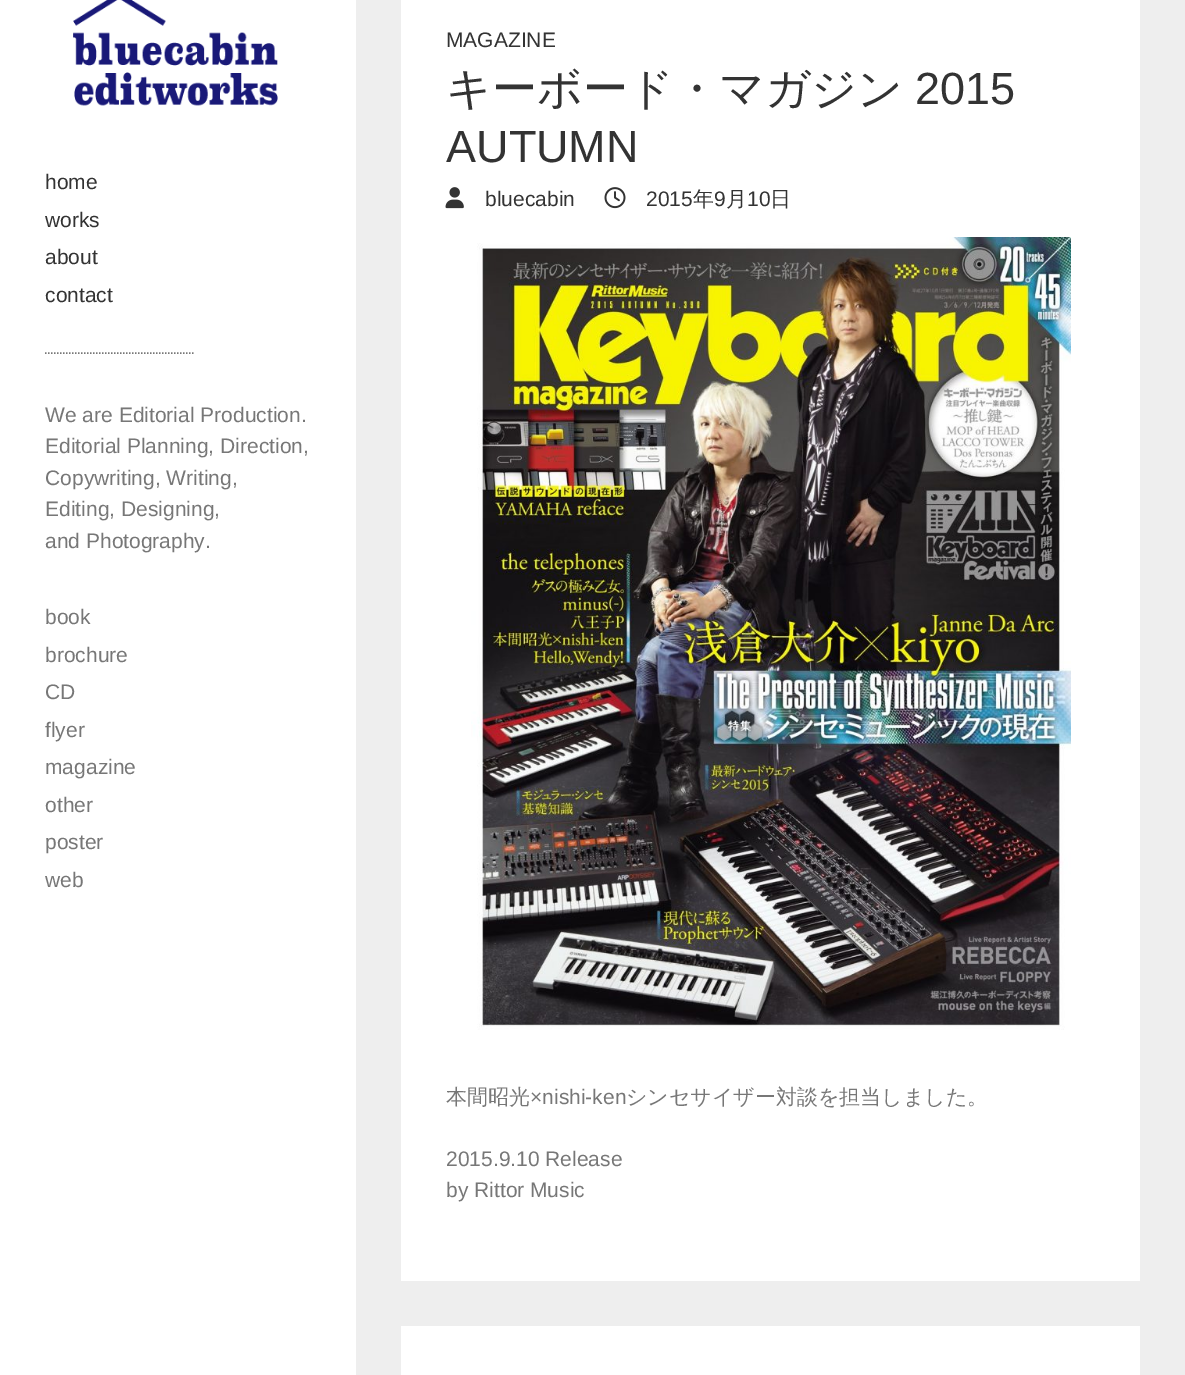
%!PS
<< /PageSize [1185 1375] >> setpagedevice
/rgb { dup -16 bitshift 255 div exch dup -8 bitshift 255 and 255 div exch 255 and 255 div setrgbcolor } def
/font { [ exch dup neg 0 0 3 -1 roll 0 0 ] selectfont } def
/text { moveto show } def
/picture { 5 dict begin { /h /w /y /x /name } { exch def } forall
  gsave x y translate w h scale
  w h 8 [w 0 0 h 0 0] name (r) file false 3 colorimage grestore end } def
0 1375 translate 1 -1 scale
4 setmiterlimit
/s1 { /LiberationSans-Regular 21 font 16#333333 rgb } def
/s2 { /WenQuanYiZenHei-Medium 45 font 16#333333 rgb } def
/s3 { /LiberationSans-Regular 45 font 16#333333 rgb } def
/s4 { /WenQuanYiZenHei-Medium 21 font 16#333333 rgb } def
/s5 { /WenQuanYiZenHei-Medium 21 font 16#777777 rgb } def
/s6 { /LiberationSans-Regular 21 font 16#777777 rgb } def
16#EEEEEE rgb
0 0 1185 1375 rectfill
16#FFFFFF rgb
0 0 356 1375 rectfill
401 0 739 1281 rectfill
s1
(MAGAZINE) 446 47 text
s2
(キーボード・マガジン) 446 104 text
s3
(2015) 915 104 text
(AUTUMN) 446 162 text
(pic1.raw) 445 187 19 22 picture
s1
(bluecabin) 485 206 text
(pic2.raw) 604 187 22 22 picture
(2015) 646 206 text
s4
(年) 693 206 text
s1
(9) 714 206 text
s4
(月) 726 206 text
s1
(10) 747 206 text
s4
(日) 770 206 text
(pic3.raw) 471 237 600 793 picture
s5
(本間昭光) 446 1104 text
s6
(×nishi-ken) 530 1104 text
s5
(シンセサイザー対談を担当しました。) 626 1104 text
s6
(2015.9.10 Release) 446 1166 text
(by Rittor Music) 446 1197 text
16#FFFFFF rgb
401 1326 739 49 rectfill
(pic4.raw) 73 0 205 106 picture
s1
(home) 45 189 text
(works) 45 227 text
(about) 45 264 text
(contact) 45 302 text
16#777777 rgb
1.5 setlinewidth
[1.5 1.5] 0 setdash
45 353 moveto 195 353 lineto stroke
(We are Editorial Production.) 45 422 text
(Editorial Planning, Direction,) 45 453 text
(Copywriting, Writing,) 45 485 text
(Editing, Designing,) 45 516 text
(and Photography.) 45 548 text
(book) 45 624 text
(brochure) 45 662 text
(CD) 45 699 text
(flyer) 45 737 text
(magazine) 45 774 text
(other) 45 812 text
(poster) 45 849 text
(web) 45 887 text
showpage
